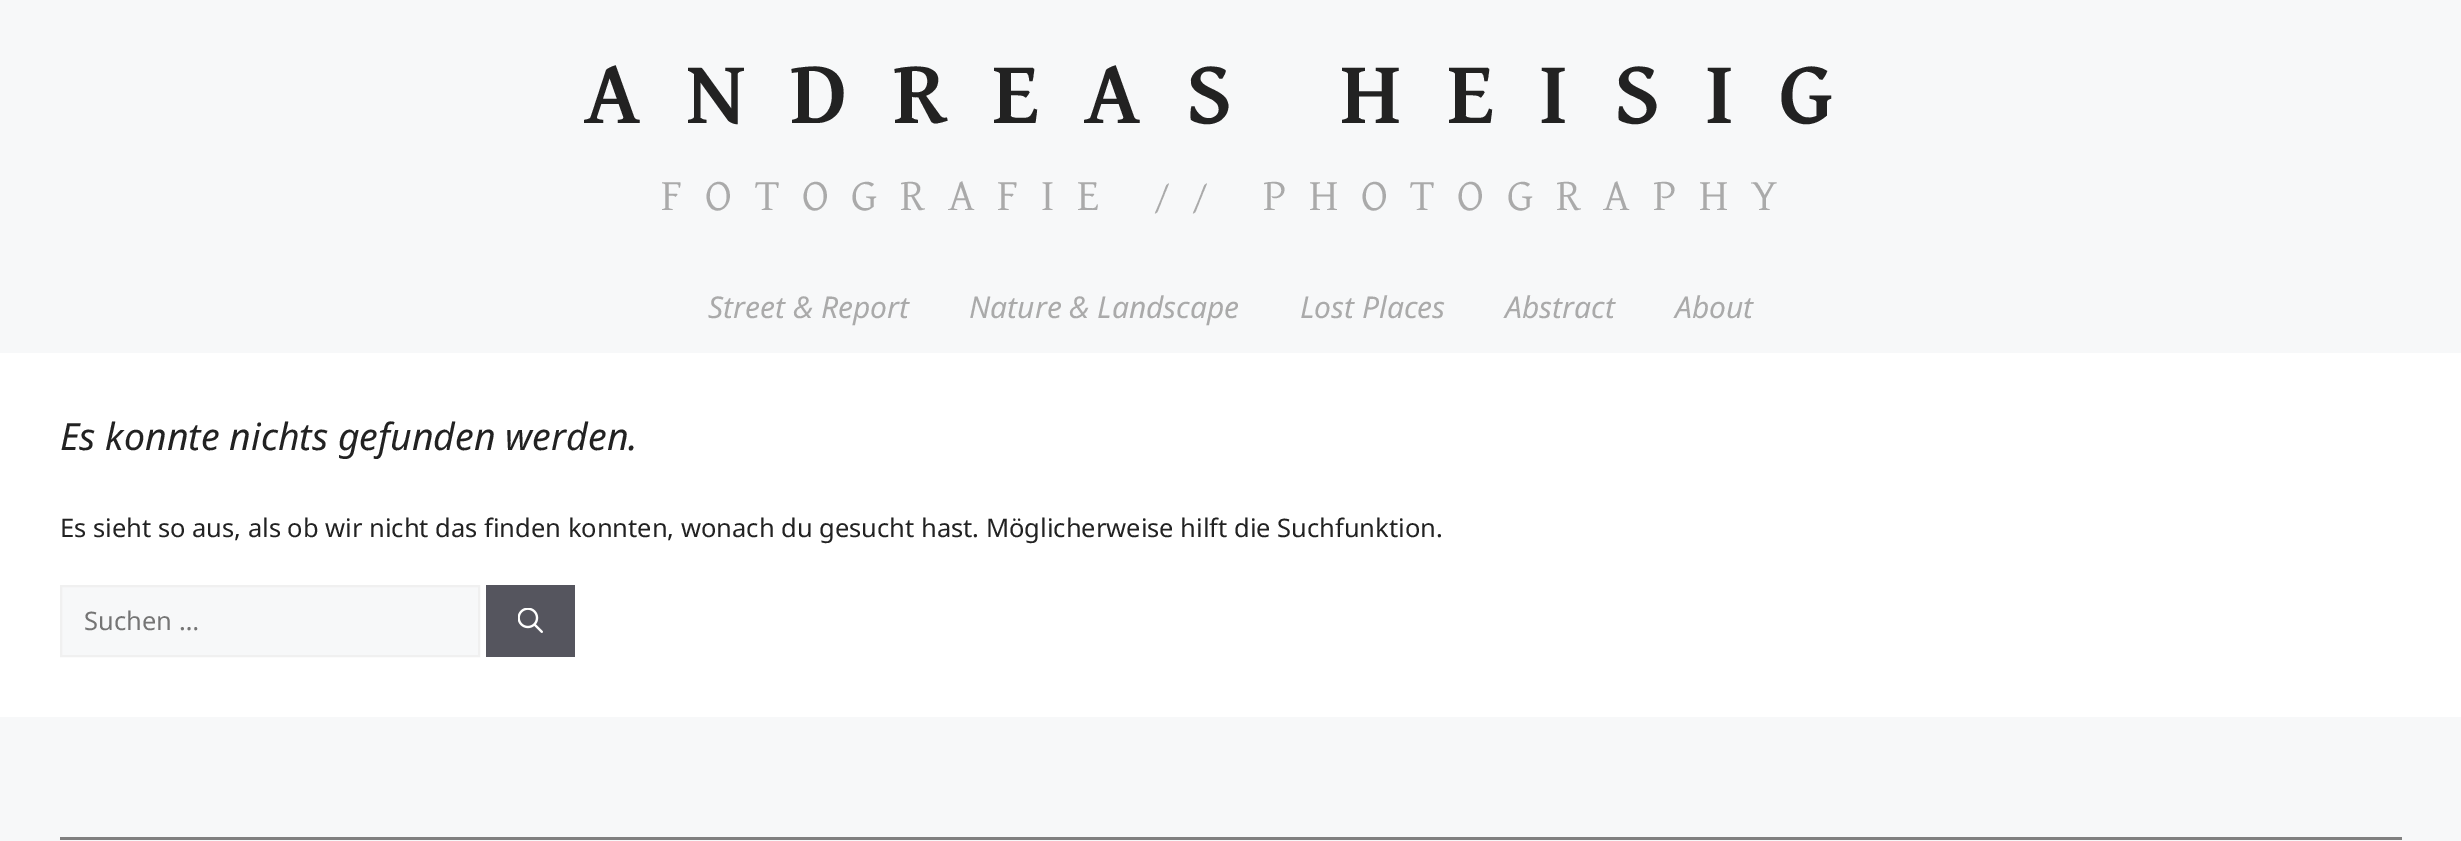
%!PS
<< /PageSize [2461 841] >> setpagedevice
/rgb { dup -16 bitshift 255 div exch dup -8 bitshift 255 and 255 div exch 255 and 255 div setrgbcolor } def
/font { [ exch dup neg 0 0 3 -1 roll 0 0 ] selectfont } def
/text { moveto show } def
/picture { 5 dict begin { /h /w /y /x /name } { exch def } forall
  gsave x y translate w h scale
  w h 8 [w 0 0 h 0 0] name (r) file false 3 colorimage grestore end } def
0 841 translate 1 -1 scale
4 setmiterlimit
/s1 { /NotoSans-Italic 30 font 16#AAAAAA rgb } def
/s2 { /NotoSans-Italic 37.5 font 16#222222 rgb } def
/s3 { /NotoSans-Regular 25.5 font 16#222222 rgb } def
/s4 { /NotoSans-Regular 25.5 font 16#757575 rgb } def
16#FFFFFF rgb
0 0 2461 841 rectfill
16#F7F8F9 rgb
0 0 2461 353 rectfill
/DavidLibre-Bold 90 font
16#222222 rgb
584 123 moveto 45 0 (ANDREAS HEISIG) ashow
/DavidLibre-Regular 45 font
16#AAAAAA rgb
661 210 moveto 22.5 0 (FOTOGRAFIE // PHOTOGRAPHY) ashow
s1
(Street & Report) 708 318 text
(Nature & Landscape) 969 318 text
(Lost Places) 1300 318 text
(Abstract) 1505 318 text
(About) 1675 318 text
s2
(Es konnte nichts gefunden werden.) 60 450 text
s3
(Es sieht so aus, als ob wir nicht das finden konnten, wonach du gesucht hast. Möglicherweise hilft die Suchfunktion.) 60 537 text
16#F7F8F9 rgb
61 586 moveto 479 586 lineto 479 656 lineto 61 656 lineto closepath gsave fill grestore
16#F0F0F0 rgb
2 setlinewidth
stroke
s4
(Suchen …) 84 630 text
16#55555E rgb
486 585 89 72 rectfill
(pic1.raw) 518 608 25 25 picture
16#F7F8F9 rgb
0 717 2461 124 rectfill
16#808080 rgb
60 837 2342 3 rectfill
showpage
